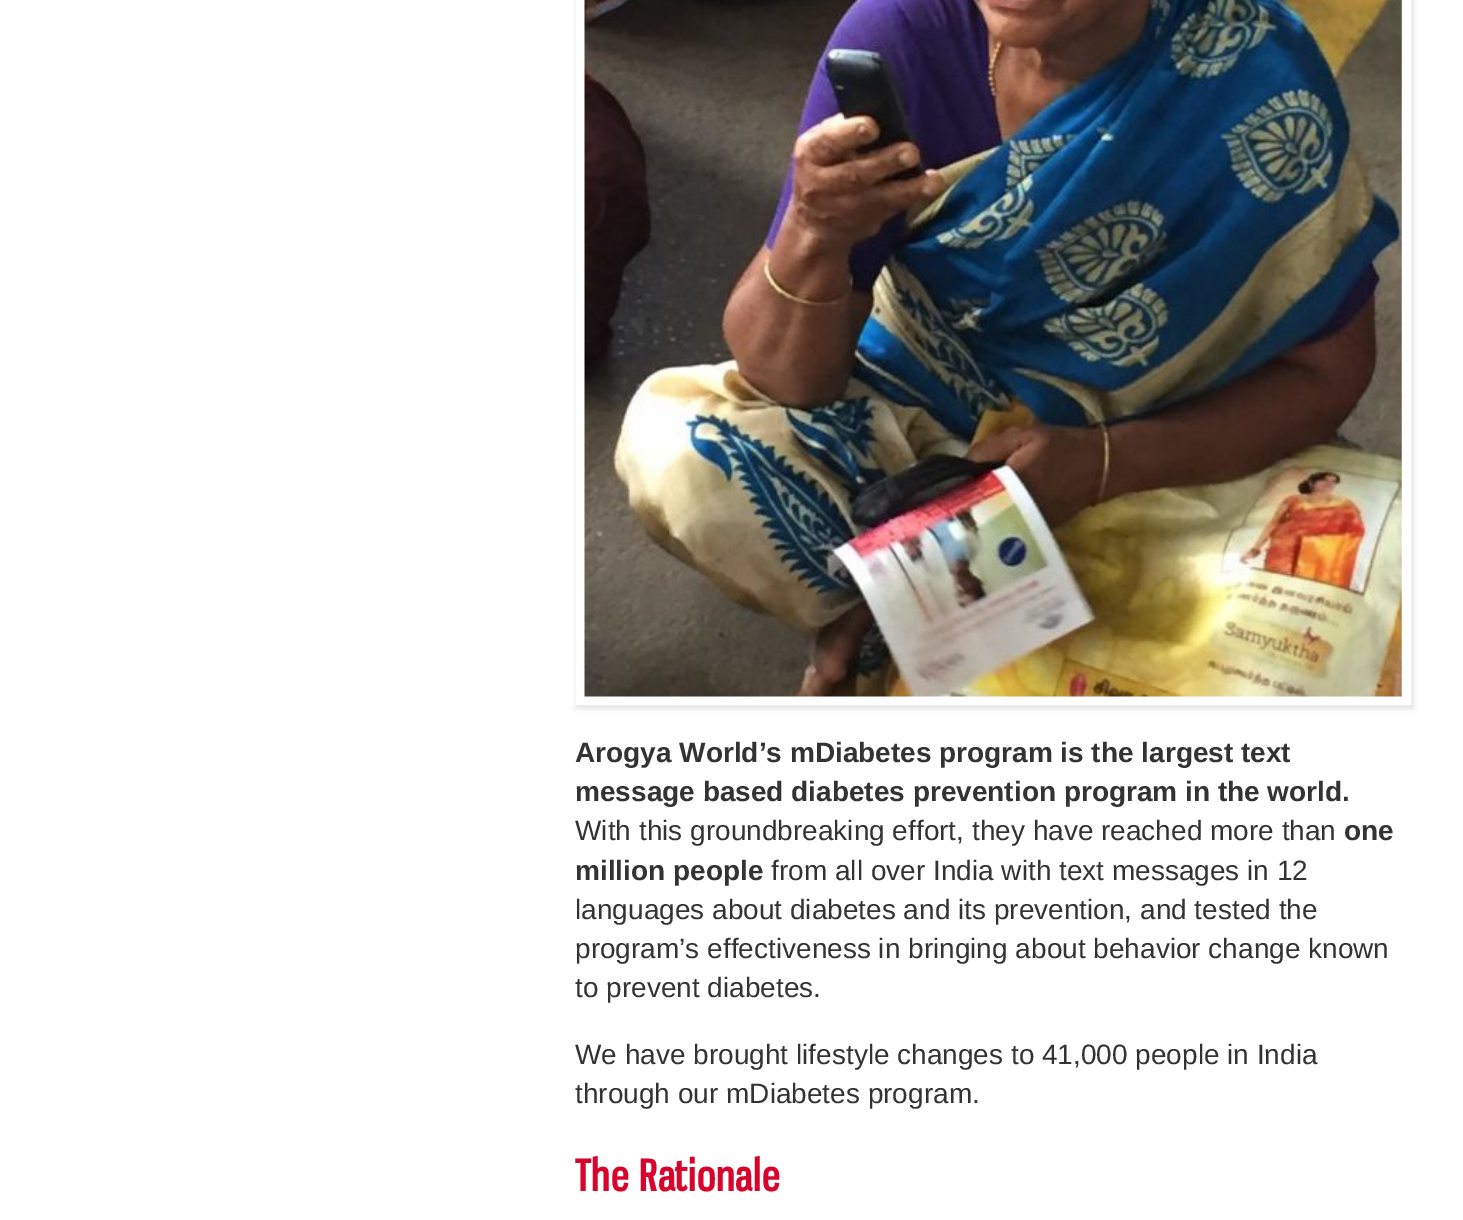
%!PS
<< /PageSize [1463 1220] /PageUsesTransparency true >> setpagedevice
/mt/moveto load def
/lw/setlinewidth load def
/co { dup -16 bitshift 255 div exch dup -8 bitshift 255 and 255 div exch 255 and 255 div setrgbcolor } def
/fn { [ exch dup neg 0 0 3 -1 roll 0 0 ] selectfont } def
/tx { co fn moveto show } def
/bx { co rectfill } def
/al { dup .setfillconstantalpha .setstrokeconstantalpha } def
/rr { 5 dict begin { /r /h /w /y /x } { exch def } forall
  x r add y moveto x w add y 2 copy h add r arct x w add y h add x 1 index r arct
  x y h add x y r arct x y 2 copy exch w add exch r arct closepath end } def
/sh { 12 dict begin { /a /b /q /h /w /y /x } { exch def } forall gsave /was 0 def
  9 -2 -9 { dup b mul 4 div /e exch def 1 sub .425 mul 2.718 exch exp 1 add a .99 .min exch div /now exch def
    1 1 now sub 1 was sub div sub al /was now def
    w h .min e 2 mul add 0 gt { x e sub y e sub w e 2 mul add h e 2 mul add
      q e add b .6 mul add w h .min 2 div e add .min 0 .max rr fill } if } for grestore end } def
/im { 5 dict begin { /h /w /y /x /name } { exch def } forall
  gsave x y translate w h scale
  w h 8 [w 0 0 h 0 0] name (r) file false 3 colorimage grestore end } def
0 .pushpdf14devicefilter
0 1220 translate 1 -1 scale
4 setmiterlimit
0 0 1463 1220 16#FFFFFF bx
16#000000 co
576 -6 838 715 0 2 .1 sh
16#FFFFFF co
9 lw
580.5 -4.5 826 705 rectstroke
(media/1.raw) 584 0 818 697 im
(Arogya World’s mDiabetes program is the largest text) 575 762 /LiberationSans-Bold 28 16#333333 tx
(message based diabetes prevention program in the world.) 575 801 /LiberationSans-Bold 28 16#333333 tx
(With this groundbreaking effort, they have reached more than) 575 840 /LiberationSans-Regular 28 16#333333 tx
(one) 1344 840 /LiberationSans-Bold 28 16#333333 tx
(million people) 575 880 /LiberationSans-Bold 28 16#333333 tx
(from all over India with text messages in 12) 771 880 /LiberationSans-Regular 28 16#333333 tx
(languages about diabetes and its prevention, and tested the) 575 919 /LiberationSans-Regular 28 16#333333 tx
(program’s effectiveness in bringing about behavior change known) 575 958 /LiberationSans-Regular 28 16#333333 tx
(to prevent diabetes.) 575 997 /LiberationSans-Regular 28 16#333333 tx
(We have brought lifestyle changes to 41,000 people in India) 575 1064 /LiberationSans-Regular 28 16#333333 tx
(through our mDiabetes program.) 575 1103 /LiberationSans-Regular 28 16#333333 tx
/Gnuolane-Bold 42 fn
16#D9042B co
575 1191 mt 1.25 0 (The Rationale) ashow
.poppdf14devicefilter showpage
